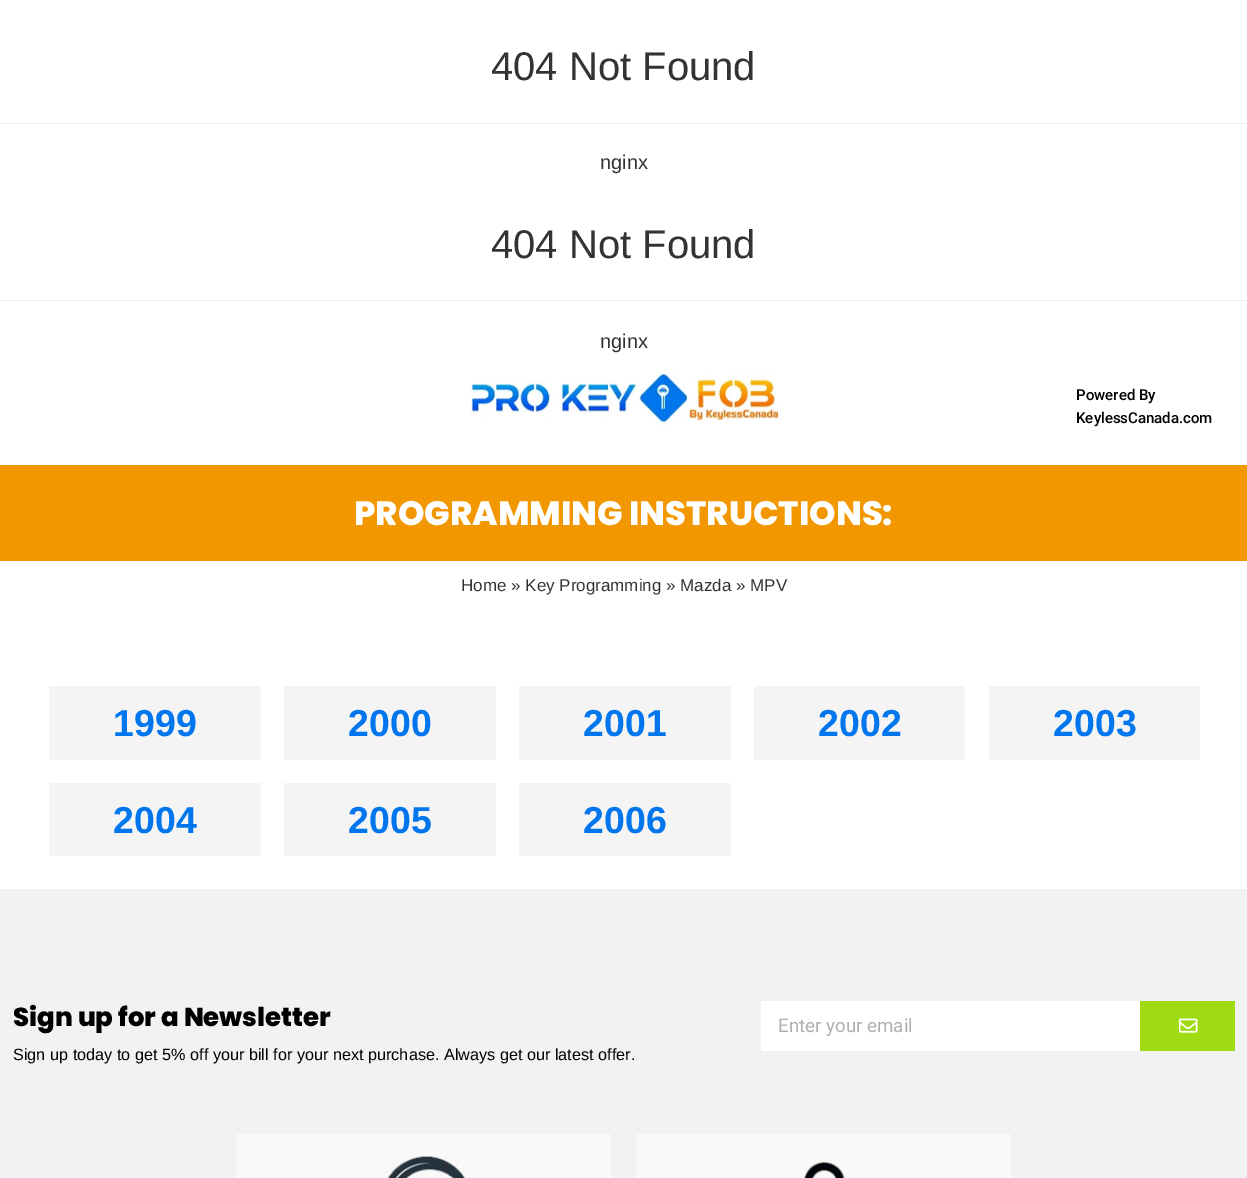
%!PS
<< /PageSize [1247 1178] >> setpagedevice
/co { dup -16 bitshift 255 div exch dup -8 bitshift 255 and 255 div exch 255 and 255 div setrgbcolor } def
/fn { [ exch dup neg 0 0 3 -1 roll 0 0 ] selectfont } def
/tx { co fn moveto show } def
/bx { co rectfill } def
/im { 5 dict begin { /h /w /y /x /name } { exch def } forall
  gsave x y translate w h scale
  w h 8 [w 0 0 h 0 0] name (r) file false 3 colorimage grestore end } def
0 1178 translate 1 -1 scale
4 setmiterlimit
0 0 1247 1178 16#FFFFFF bx
0 123 1247 1 16#EEEEEE bx
0 300 1247 1 16#EEEEEE bx
(media/1.raw) 470 369 311 57 im
0 465 1247 96 16#F39700 bx
49 686 212 74 16#F4F4F4 bx
284 686 212 74 16#F4F4F4 bx
519 686 212 74 16#F4F4F4 bx
754 686 211 74 16#F4F4F4 bx
989 686 211 74 16#F4F4F4 bx
49 783 212 73 16#F4F4F4 bx
284 783 212 73 16#F4F4F4 bx
519 783 212 73 16#F4F4F4 bx
0 889 1247 289 16#F2F2F2 bx
761 1001 379 50 16#FFFFFF bx
1140 1001 95 50 16#9FDA12 bx
(media/2.raw) 1179 1018 19 15 im
(media/3.raw) 236 1134 375 44 im
(media/4.raw) 636 1134 375 44 im
(404 Not Found) 491 80 /LiberationSans-Regular 40 16#333333 tx
(nginx) 600 169 /LiberationSans-Regular 20 16#333333 tx
(404 Not Found) 491 258 /LiberationSans-Regular 40 16#333333 tx
(nginx) 600 348 /LiberationSans-Regular 20 16#333333 tx
(Powered By) 1076 400 /Roboto-Medium 15 16#000000 tx
(KeylessCanada.com) 1076 423 /Roboto-Medium 15 16#000000 tx
(PROGRAMMING INSTRUCTIONS:) 354 525 /Poppins-ExtraBold 33.75 16#FFFFFF tx
(Home » Key Programming » Mazda » MPV) 461 591 /LiberationSans-Regular 17 16#333333 tx
(1999) 113 736 /LiberationSans-Bold 37.5 16#0076EE tx
(2000) 348 736 /LiberationSans-Bold 37.5 16#0076EE tx
(2001) 583 736 /LiberationSans-Bold 37.5 16#0076EE tx
(2002) 818 736 /LiberationSans-Bold 37.5 16#0076EE tx
(2003) 1053 736 /LiberationSans-Bold 37.5 16#0076EE tx
(2004) 113 833 /LiberationSans-Bold 37.5 16#0076EE tx
(2005) 348 833 /LiberationSans-Bold 37.5 16#0076EE tx
(2006) 583 833 /LiberationSans-Bold 37.5 16#0076EE tx
(Sign up for a Newsletter) 13 1026 /Poppins-ExtraBold 26 16#000000 tx
(Sign up today to get 5% off your bill for your next purchase. Always get our latest offer.) 13 1060 /LiberationSans-Regular 16.25 16#000000 tx
(Enter your email) 778 1032 /Roboto-Regular 18.75 16#AFAFAF tx
showpage
